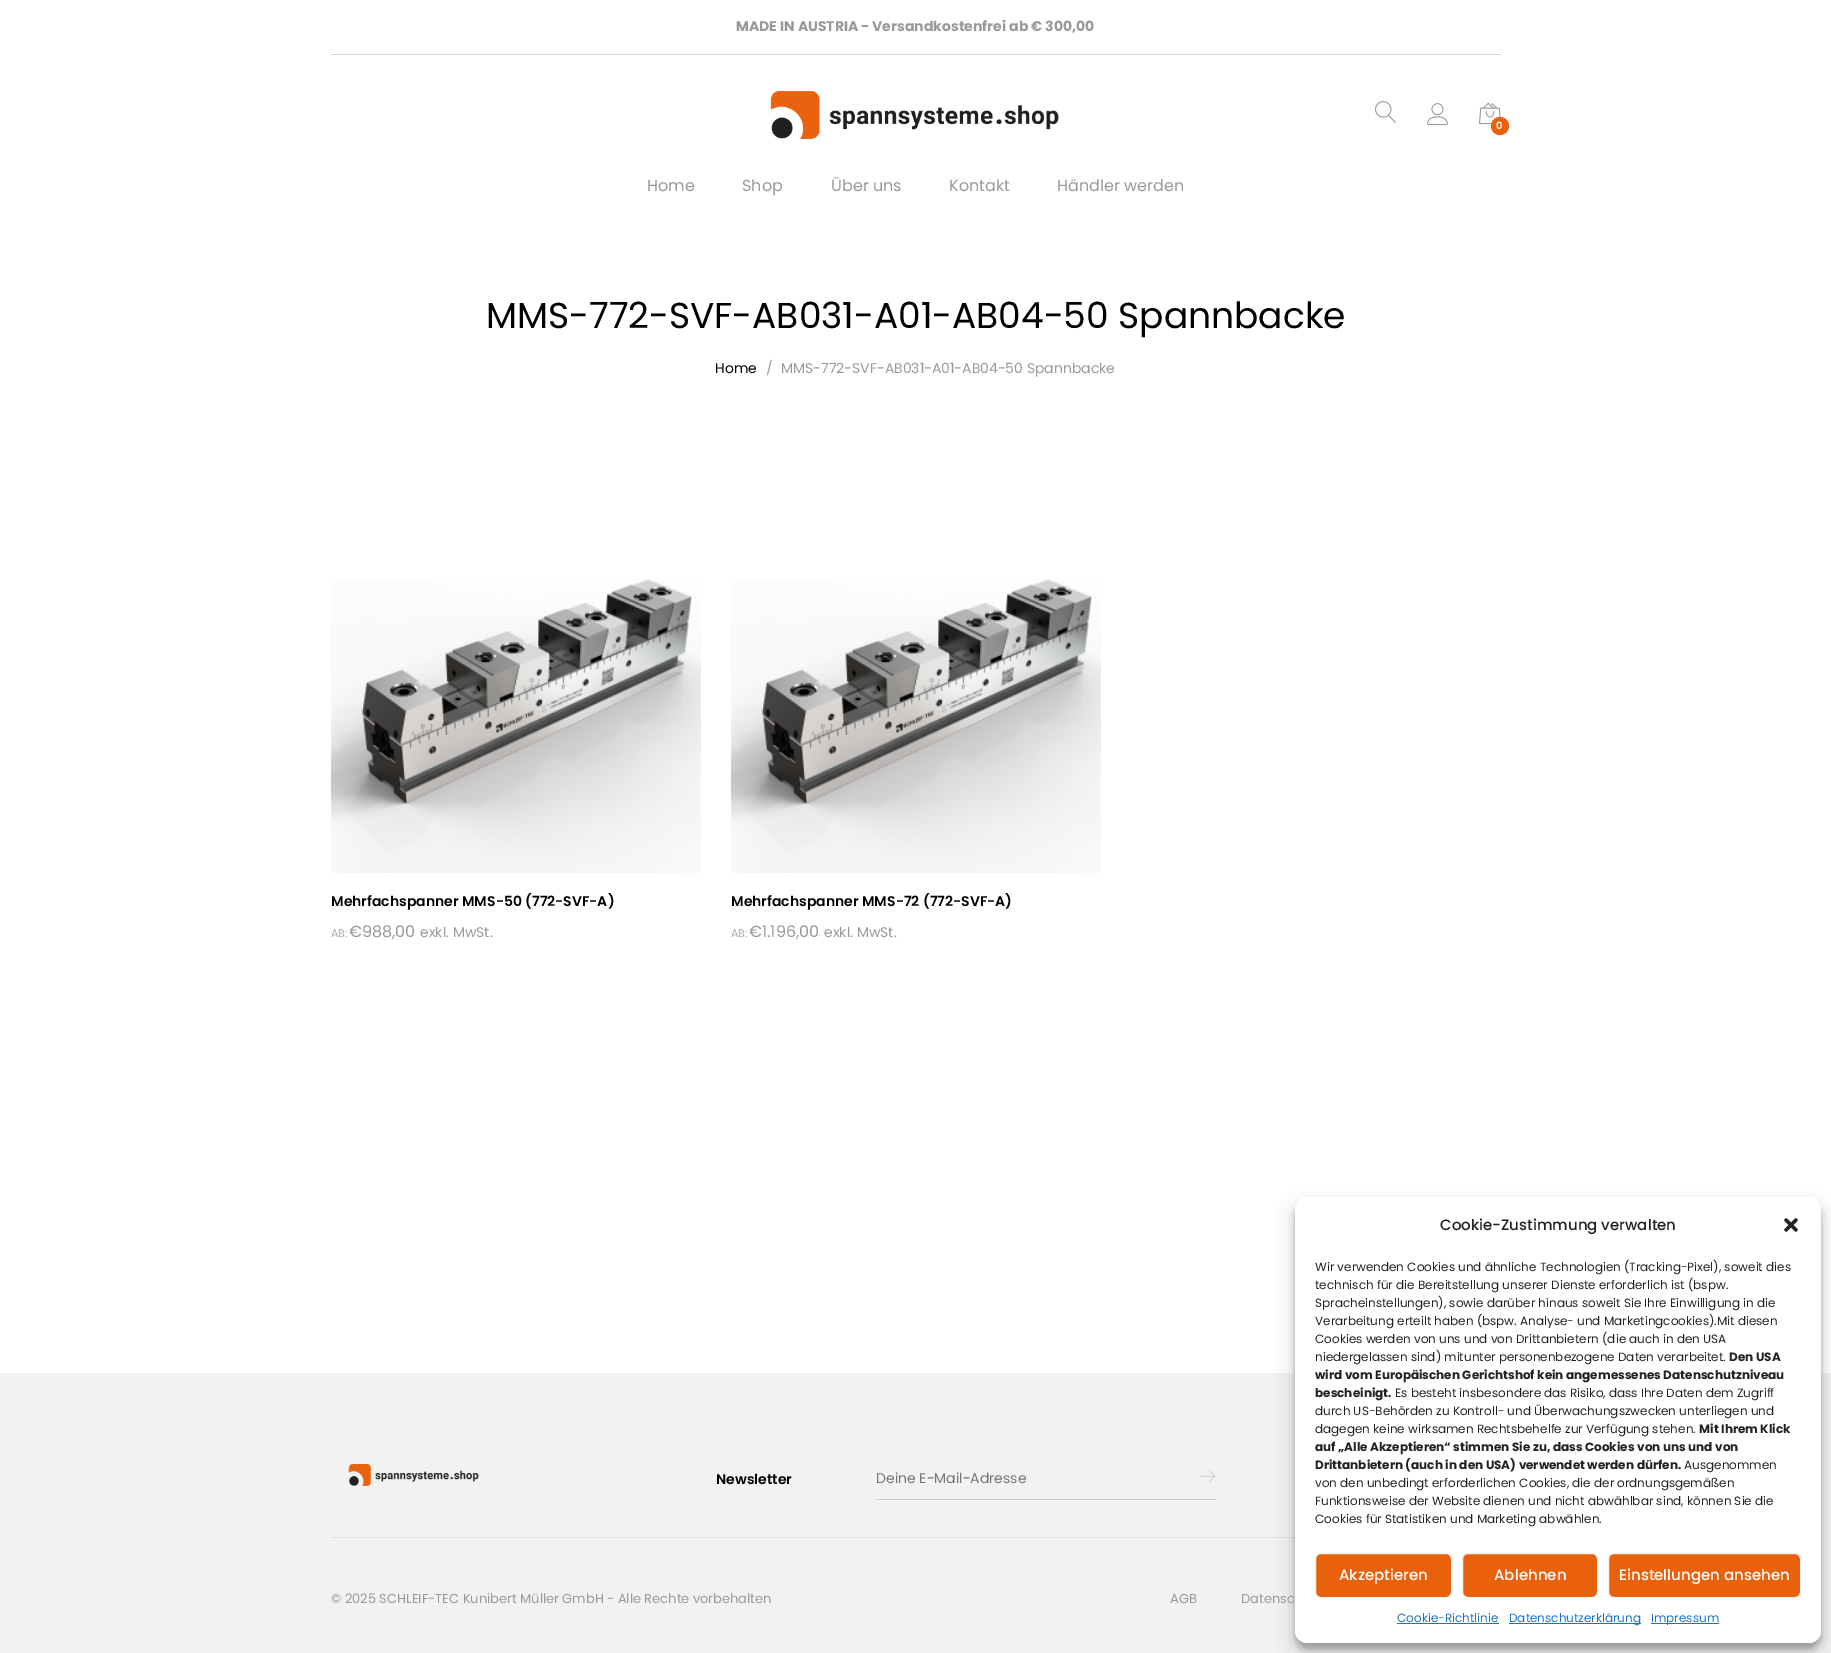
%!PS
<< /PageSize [1831 1653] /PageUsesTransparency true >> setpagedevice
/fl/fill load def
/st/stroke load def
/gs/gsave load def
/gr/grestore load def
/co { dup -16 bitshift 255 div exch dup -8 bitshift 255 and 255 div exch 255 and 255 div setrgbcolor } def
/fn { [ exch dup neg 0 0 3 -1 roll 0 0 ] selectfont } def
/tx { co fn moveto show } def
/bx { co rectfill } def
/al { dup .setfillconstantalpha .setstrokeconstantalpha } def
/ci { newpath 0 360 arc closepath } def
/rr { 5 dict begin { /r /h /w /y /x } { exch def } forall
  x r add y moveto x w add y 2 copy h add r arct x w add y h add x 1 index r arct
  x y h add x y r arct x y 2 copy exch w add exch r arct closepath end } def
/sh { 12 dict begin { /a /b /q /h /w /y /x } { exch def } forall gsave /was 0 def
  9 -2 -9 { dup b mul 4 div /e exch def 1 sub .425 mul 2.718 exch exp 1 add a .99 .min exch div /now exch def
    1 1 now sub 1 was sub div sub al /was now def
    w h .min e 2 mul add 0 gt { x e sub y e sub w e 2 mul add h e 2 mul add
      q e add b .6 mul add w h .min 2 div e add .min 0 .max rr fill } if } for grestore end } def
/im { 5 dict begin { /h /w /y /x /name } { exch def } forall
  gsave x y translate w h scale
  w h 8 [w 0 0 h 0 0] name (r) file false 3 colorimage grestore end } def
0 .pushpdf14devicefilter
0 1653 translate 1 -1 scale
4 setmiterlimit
0 0 1831 1653 16#FFFFFF bx
331 54 1170 1 16#D6D6D6 bx
(media/1.raw) 770 91 289 48 im
(media/2.raw) 1375 101 21 22 im
(media/3.raw) 1427 103 21 23 im
(media/4.raw) 1479 102 22 23 im
16#E9600D co
1500 126 9 ci fl
(media/5.raw) 331 579 370 294 im
(media/6.raw) 731 579 370 294 im
0 1373 1831 280 16#F2F2F2 bx
(media/7.raw) 348 1464 131 22 im
876 1499 340 1 16#CCCCCC bx
(media/8.raw) 1199 1470 17 12 im
331 1537 964 1 16#E1E1E1 bx
16#000000 co
1295 1203 526 446 12 3 .23 sh
1295 1207 526 446 12 10 .19 sh
16#FFFFFF co
1295 1197 526 446 12 rr fl
(media/9.raw) 1784 1218 14 14 im
16#E9600D co
1315.5 1553.5 136 44 5.5 rr gs fl gr
16#F2F2F2 co
st
16#E9600D co
1462.5 1553.5 135 44 5.5 rr gs fl gr
16#F2F2F2 co
st
16#E9600D co
1608.5 1553.5 192 44 5.5 rr gs fl gr
16#F2F2F2 co
st
1397 1623 102 1 16#1E73BE bx
1509 1623 132 1 16#1E73BE bx
1651 1623 68 1 16#1E73BE bx
(MADE IN AUSTRIA - Versandkostenfrei ab € 300,00) 736 31 /Poppins-Bold 14 16#999999 tx
(0) 1496 129 /Poppins-SemiBold 10 16#FFFFFF tx
(Home) 647 191 /Poppins-Regular 16 16#999999 tx
(Shop) 742 191 /Poppins-Regular 16 16#999999 tx
(Über uns) 831 191 /Poppins-Regular 16 16#999999 tx
(Kontakt) 949 191 /Poppins-Regular 16 16#999999 tx
(Händler werden) 1057 191 /Poppins-Regular 16 16#999999 tx
(MMS-772-SVF-AB031-A01-AB04-50 Spannbacke) 486 328 /Poppins-Regular 36 16#000000 tx
(Home) 715 373 /Poppins-Regular 14 16#000000 tx
(/) 766 373 /Poppins-Regular 14 16#999999 tx
(MMS-772-SVF-AB031-A01-AB04-50 Spannbacke) 781 373 /Poppins-Regular 14 16#999999 tx
(Mehrfachspanner MMS-50 \(772-SVF-A\)) 331 906 /Poppins-SemiBold 14 16#000000 tx
(AB:) 331 937 /Poppins-Regular 11 16#ADACA2 tx
(€988,00) 349 937 /Poppins-Regular 16 16#999999 tx
(exkl. MwSt.) 420 937 /Poppins-Regular 14 16#999999 tx
(Mehrfachspanner MMS-72 \(772-SVF-A\)) 731 906 /Poppins-SemiBold 14 16#000000 tx
(AB:) 731 937 /Poppins-Regular 11 16#ADACA2 tx
(€1.196,00) 749 937 /Poppins-Regular 16 16#999999 tx
(exkl. MwSt.) 824 937 /Poppins-Regular 14 16#999999 tx
(Newsletter) 716 1484 /Poppins-SemiBold 14 16#000000 tx
(Deine E-Mail-Adresse) 876 1483 /Poppins-Regular 14 16#757575 tx
(© 2025 SCHLEIF-TEC Kunibert Müller GmbH - Alle Rechte vorbehalten) 331 1603 /Poppins-Regular 13 16#999999 tx
(AGB) 1170 1603 /Poppins-Regular 13 16#999999 tx
(Datensc) 1241 1603 /Poppins-Regular 13 16#999999 tx
(Cookie-Zustimmung verwalten) 1440 1230 /Poppins-Medium 15 16#222222 tx
(Wir verwenden Cookies und ähnliche Technologien \(Tracking-Pixel\), soweit dies) 1315 1271 /Poppins-Regular 12 16#222222 tx
(technisch für die Bereitstellung unserer Dienste erforderlich ist \(bspw.) 1315 1289 /Poppins-Regular 12 16#222222 tx
(Spracheinstellungen\), sowie darüber hinaus soweit Sie Ihre Einwilligung in die) 1315 1307 /Poppins-Regular 12 16#222222 tx
(Verarbeitung erteilt haben \(bspw. Analyse- und Marketingcookies\).Mit diesen) 1315 1325 /Poppins-Regular 12 16#222222 tx
(Cookies werden von uns und von Drittanbietern \(die auch in den USA) 1315 1343 /Poppins-Regular 12 16#222222 tx
(niedergelassen sind\) mitunter personenbezogene Daten verarbeitet.) 1315 1361 /Poppins-Regular 12 16#222222 tx
(Den USA) 1729 1361 /Poppins-Bold 12 16#222222 tx
(wird vom Europäischen Gerichtshof kein angemessenes Datenschutzniveau) 1315 1379 /Poppins-Bold 12 16#222222 tx
(bescheinigt.) 1315 1397 /Poppins-Bold 12 16#222222 tx
(Es besteht insbesondere das Risiko, dass Ihre Daten dem Zugriff) 1395 1397 /Poppins-Regular 12 16#222222 tx
(durch US-Behörden zu Kontroll- und Überwachungszwecken unterliegen und) 1315 1415 /Poppins-Regular 12 16#222222 tx
(dagegen keine wirksamen Rechtsbehelfe zur Verfügung stehen.) 1315 1433 /Poppins-Regular 12 16#222222 tx
(Mit Ihrem Klick) 1699 1433 /Poppins-Bold 12 16#222222 tx
(auf „Alle Akzeptieren“ stimmen Sie zu, dass Cookies von uns und von) 1315 1451 /Poppins-Bold 12 16#222222 tx
(Drittanbietern \(auch in den USA\) verwendet werden dürfen.) 1315 1469 /Poppins-Bold 12 16#222222 tx
(Ausgenommen) 1684 1469 /Poppins-Regular 12 16#222222 tx
(von den unbedingt erforderlichen Cookies, die der ordnungsgemäßen) 1315 1487 /Poppins-Regular 12 16#222222 tx
(Funktionsweise der Website dienen und nicht abwählbar sind, können Sie die) 1315 1505 /Poppins-Regular 12 16#222222 tx
(Cookies für Statistiken und Marketing abwählen.) 1315 1523 /Poppins-Regular 12 16#222222 tx
(Akzeptieren) 1339 1580 /Poppins-Medium 15 16#FFFFFF tx
(Ablehnen) 1494 1580 /Poppins-Medium 15 16#FFFFFF tx
(Einstellungen ansehen) 1619 1580 /Poppins-Medium 15 16#FFFFFF tx
(Cookie-Richtlinie) 1397 1622 /Poppins-Regular 12 16#1E73BE tx
(Datenschutzerklärung) 1509 1622 /Poppins-Regular 12 16#1E73BE tx
(Impressum) 1651 1622 /Poppins-Regular 12 16#1E73BE tx
.poppdf14devicefilter showpage
